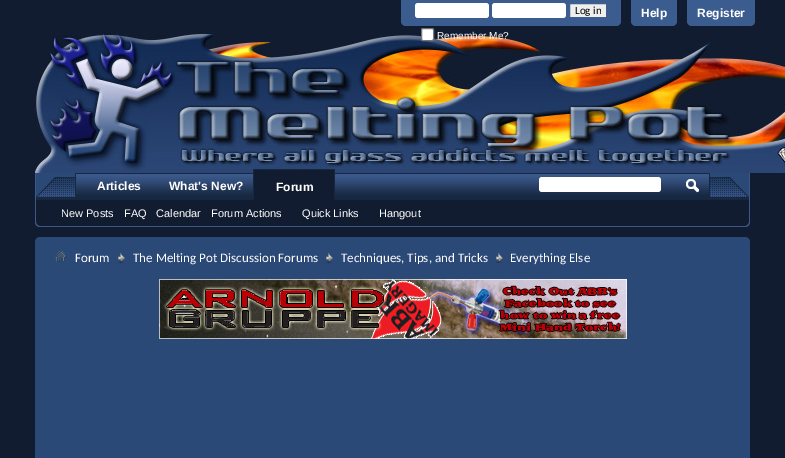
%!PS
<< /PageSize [785 458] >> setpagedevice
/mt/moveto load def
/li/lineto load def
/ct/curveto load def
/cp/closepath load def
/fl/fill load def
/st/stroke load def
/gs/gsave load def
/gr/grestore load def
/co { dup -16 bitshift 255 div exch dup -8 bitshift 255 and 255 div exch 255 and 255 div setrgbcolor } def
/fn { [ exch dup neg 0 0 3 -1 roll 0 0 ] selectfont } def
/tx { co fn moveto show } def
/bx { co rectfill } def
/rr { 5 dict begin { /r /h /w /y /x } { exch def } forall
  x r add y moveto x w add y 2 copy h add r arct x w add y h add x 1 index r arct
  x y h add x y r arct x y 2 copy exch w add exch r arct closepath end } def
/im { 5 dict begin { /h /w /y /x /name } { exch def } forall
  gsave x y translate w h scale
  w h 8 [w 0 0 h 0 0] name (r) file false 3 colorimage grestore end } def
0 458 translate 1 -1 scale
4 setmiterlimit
0 0 785 458 16#111C30 bx
16#3B5C8F co
401 0 mt 621 0 li 621 21 li 621 24 619 26 616 26 ct 406 26 li 403 26 401 24 401 21 ct cp fl
16#FFFFFF co
415 3 74 15 3 rr fl
492 3 74 15 3 rr fl
16#EFEFEF co
569.5 3.5 mt 606.5 3.5 li 606.5 17.5 li 569.5 17.5 li cp gs fl gr
16#415D8D co
st
(media/1.raw) 35 33 750 140 im
16#FFFFFF co
421.5 28.5 12 12 1.5 rr gs fl gr
16#767676 co
st
16#3B5C8F co
631 0 mt 677 0 li 677 21 li 677 24 675 26 672 26 ct 636 26 li 633 26 631 24 631 21 ct cp fl
687 0 mt 755 0 li 755 21 li 755 24 753 26 750 26 ct 692 26 li 689 26 687 24 687 21 ct cp fl
16#3A5889 co
35 173 mt 750 173 li 750 222 li 750 225 748 227 745 227 ct 40 227 li 37 227 35 225 35 222 ct cp 36 173 mt 749 173 li 749 222 li 749 224 747 226 745 226 ct 40 226 li 38 226 36 224 36 222 ct cp eofill
36 173 713 26 16#172942 bx
(media/2.raw) 36 173 40 24 im
(media/3.raw) 76 174 633 21 im
36 199 713 1 16#162740 bx
254 170 80 30 16#111C30 bx
253 169 82 1 16#162740 bx
334 169 1 31 16#162740 bx
253 169 1 31 16#162740 bx
16#FFFFFF co
539 177 122 15 3 rr fl
(media/4.raw) 686 179 13 14 im
(media/5.raw) 709 173 40 24 im
16#2B4976 co
35 237 715 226 5 rr fl
(media/6.raw) 55 250 12 12 im
(media/7.raw) 118 253 7 10 im
(media/7.raw) 326 253 7 10 im
(media/7.raw) 496 253 7 10 im
(media/8.raw) 159 279 468 60 im
(Log in) 575 14 /Carlito-Regular 11 16#000000 tx
(Remember Me?) 437 39 /LiberationSans-Regular 10 16#FFFFFF tx
(Help) 641 17 /LiberationSans-Bold 12 16#FFFFFF tx
(Register) 697 17 /LiberationSans-Bold 12 16#FFFFFF tx
(Articles) 97 190 /LiberationSans-Bold 12 16#FFFFFF tx
(What's New?) 169 190 /LiberationSans-Bold 12 16#FFFFFF tx
(Forum) 276 191 /LiberationSans-Bold 12 16#FFFFFF tx
(New Posts) 61 217 /LiberationSans-Regular 11 16#FFFFFF tx
(FAQ) 124 217 /LiberationSans-Regular 11 16#FFFFFF tx
(Calendar) 156 217 /LiberationSans-Regular 11 16#FFFFFF tx
(Forum Actions) 211 217 /LiberationSans-Regular 11 16#FFFFFF tx
(Quick Links) 302 217 /LiberationSans-Regular 11 16#FFFFFF tx
(Hangout) 379 217 /LiberationSans-Regular 11 16#FFFFFF tx
(Forum) 75 262 /Carlito-Regular 13 16#FFFFFF tx
(The Melting Pot Discussion Forums) 133 262 /Carlito-Regular 13 16#FFFFFF tx
(Techniques, Tips, and Tricks) 341 262 /Carlito-Regular 13 16#FFFFFF tx
(Everything Else) 510 262 /Carlito-Regular 13 16#FFFFFF tx
showpage
